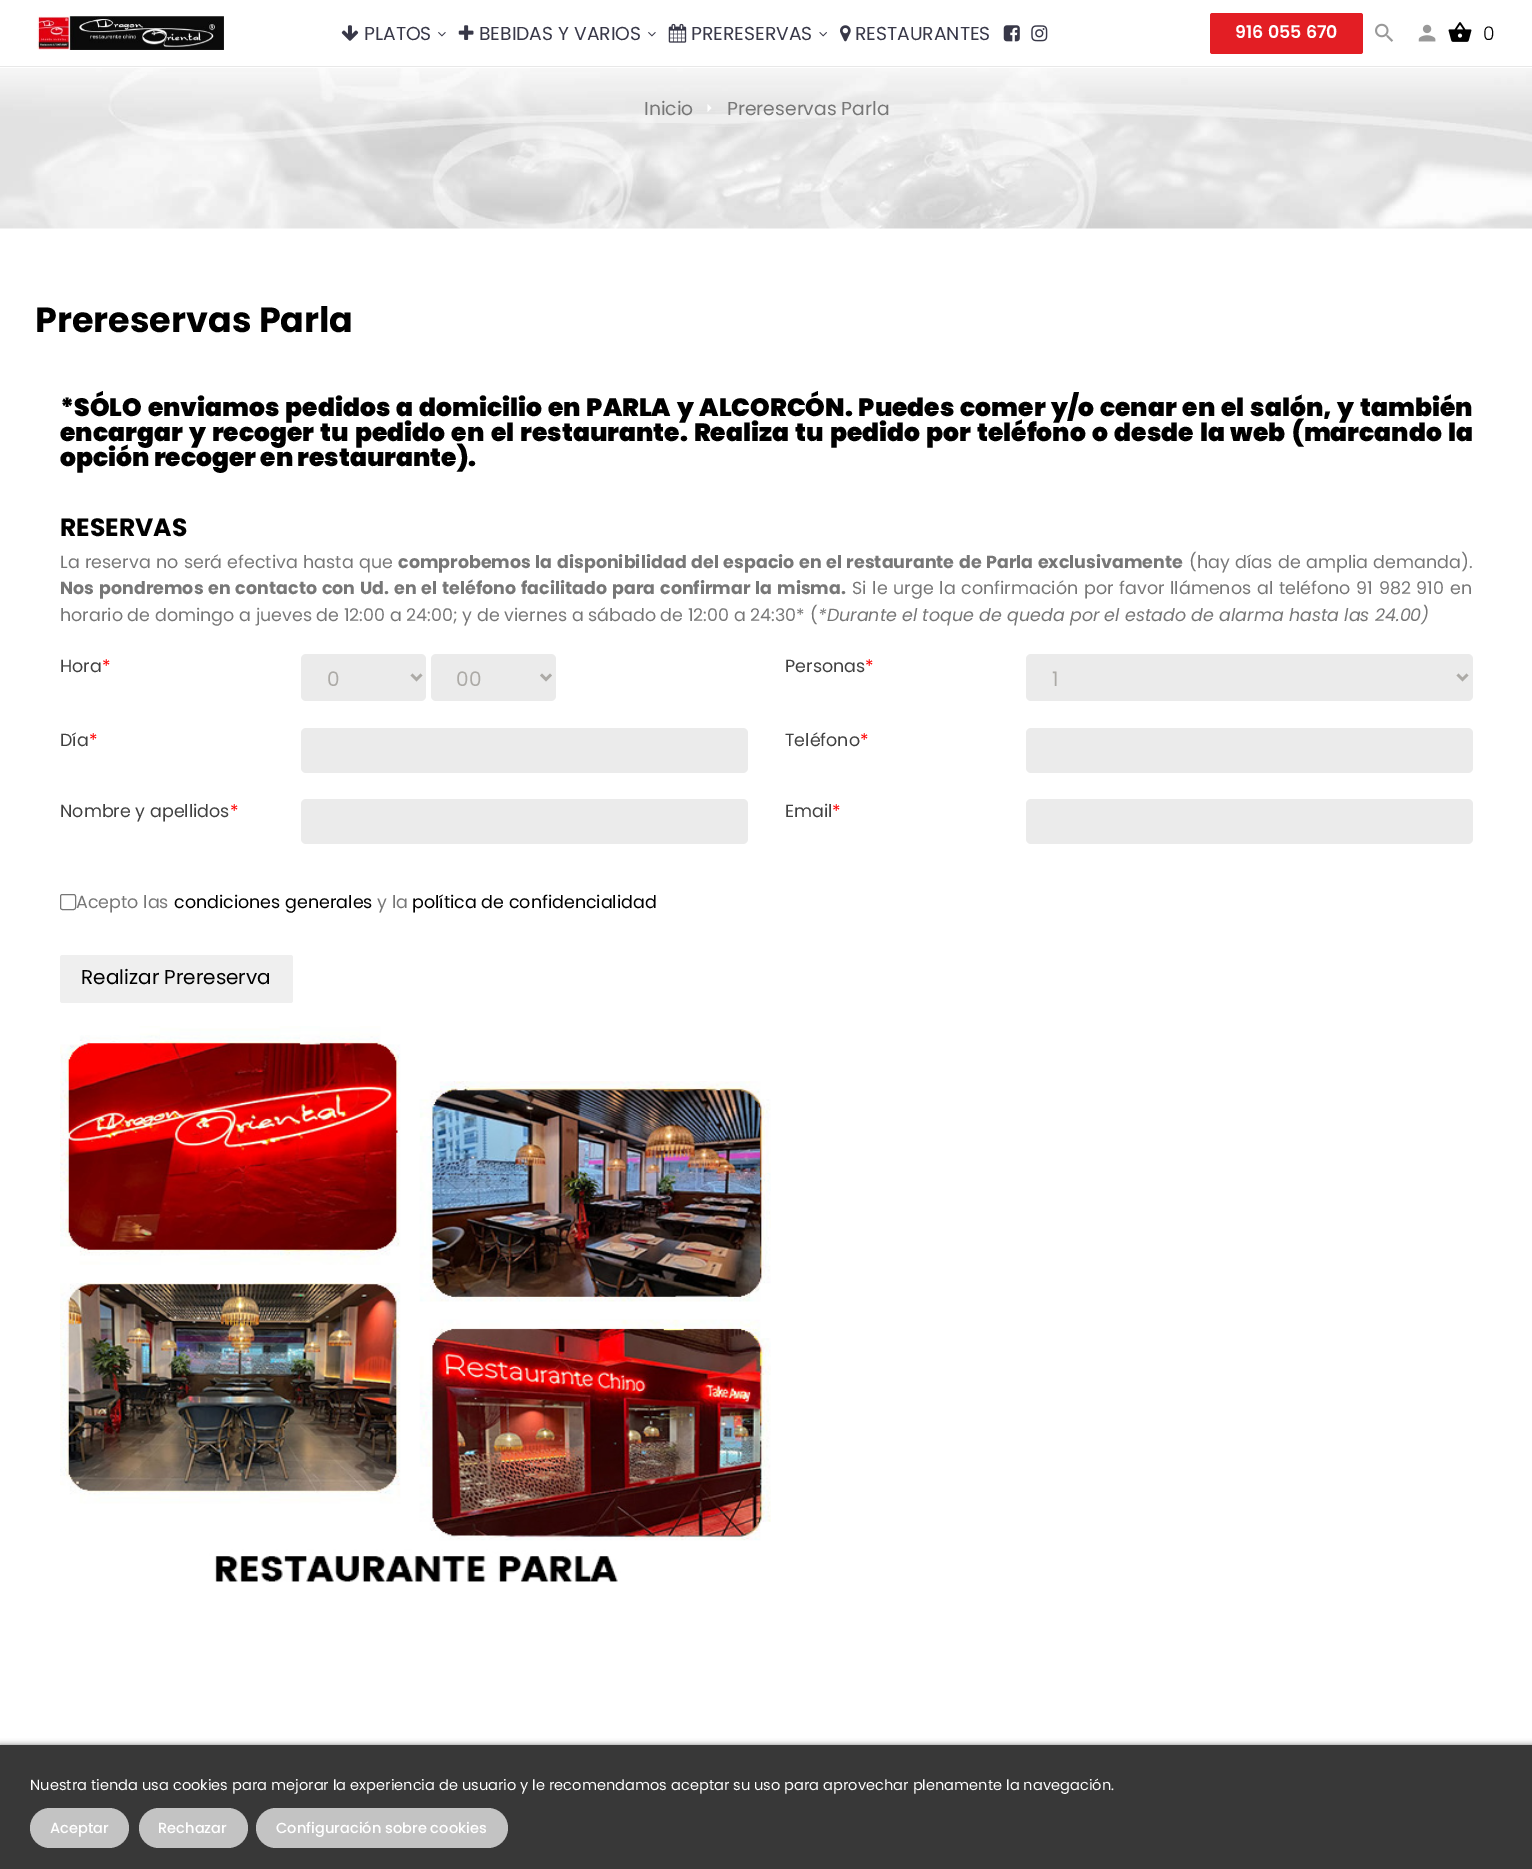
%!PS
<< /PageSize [1532 1869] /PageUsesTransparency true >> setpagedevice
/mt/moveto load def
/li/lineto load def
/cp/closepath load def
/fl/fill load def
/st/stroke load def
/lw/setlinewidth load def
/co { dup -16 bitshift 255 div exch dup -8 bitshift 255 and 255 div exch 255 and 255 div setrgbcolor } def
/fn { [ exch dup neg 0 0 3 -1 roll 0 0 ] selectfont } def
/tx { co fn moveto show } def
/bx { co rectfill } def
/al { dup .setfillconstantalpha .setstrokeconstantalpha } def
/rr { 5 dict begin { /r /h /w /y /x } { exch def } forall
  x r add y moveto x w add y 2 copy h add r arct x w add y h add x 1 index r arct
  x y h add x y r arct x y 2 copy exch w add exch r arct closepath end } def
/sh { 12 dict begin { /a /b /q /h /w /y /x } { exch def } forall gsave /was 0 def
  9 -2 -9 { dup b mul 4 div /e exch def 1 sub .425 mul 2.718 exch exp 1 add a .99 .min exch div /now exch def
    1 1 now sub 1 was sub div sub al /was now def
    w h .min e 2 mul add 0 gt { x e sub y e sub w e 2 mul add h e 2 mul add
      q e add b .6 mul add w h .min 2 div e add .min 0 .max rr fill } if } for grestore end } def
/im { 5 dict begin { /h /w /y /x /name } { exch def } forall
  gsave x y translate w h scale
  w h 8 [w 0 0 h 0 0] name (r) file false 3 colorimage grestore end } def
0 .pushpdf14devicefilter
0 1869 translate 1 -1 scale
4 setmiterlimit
0 0 1532 1869 16#FFFFFF bx
0 66 1532 1 16#E8E8E8 bx
(media/1.raw) 37 16 187 34 im
(media/2.raw) 341 25 18 16 im
(media/3.raw) 438 32 8 5 im
(media/4.raw) 458 25 16 15 im
(media/3.raw) 648 32 8 5 im
(media/5.raw) 668 23 19 20 im
(media/6.raw) 819 32 8 5 im
(media/7.raw) 840 25 11 17 im
(media/8.raw) 1003 25 17 17 im
(media/9.raw) 1031 25 17 17 im
16#E31E24 co
1210 13 153 41 2.5 rr fl
(media/10.raw) 1375 23 19 19 im
(media/11.raw) 1418 24 18 18 im
(media/12.raw) 1448 22 24 20 im
(media/13.raw) 0 68 1532 161 im
16#FFFFFF co
707.5 112 mt 707.5 104 li 711.5 108 li cp fl
16#EBEBEB co
301 654 125 47 5 rr fl
16#ACAAA6 co
2.5 lw
411.5 674.5 mt 416.5 679.5 li 421.5 674.5 li st
16#EBEBEB co
431 654 125 47 5 rr fl
16#ACAAA6 co
541 674.5 mt 546 679.5 li 551 674.5 li st
16#EBEBEB co
301 728 447 45 5 rr fl
301 799 447 45 5 rr fl
1026 654 447 47 5 rr fl
16#ACAAA6 co
1457.5 674.5 mt 1462.5 679.5 li 1467.5 674.5 li st
16#EBEBEB co
1026 728 447 45 5 rr fl
1026 799 447 45 5 rr fl
16#767676 co
1 lw
60.5 894.5 15 15 2 rr st
16#EFEFEF co
60 955 233 48 2.5 rr fl
(media/14.raw) 60 1026 711 556 im
16#000000 co
0 1745 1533 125 0 3 .5 sh
0 1745 1532 124 16#383838 bx
16#C3C3C3 co
30 1808 99 40 20 rr fl
139 1808 109 40 20 rr fl
256 1808 252 40 20 rr fl
(PLATOS) 364 40 /Poppins-Regular 18.75 16#383848 tx
(BEBIDAS Y VARIOS) 479 40 /Poppins-Regular 18.75 16#383848 tx
(PRERESERVAS) 691 40 /Poppins-Regular 18.75 16#383848 tx
(RESTAURANTES) 855 40 /Poppins-Regular 18.75 16#383848 tx
(916 055 670) 1235 38 /Poppins-SemiBold 17.5 16#FFFFFF tx
(0) 1483 40 /Poppins-Light 18.75 16#000000 tx
(Inicio) 644 115 /Poppins-Regular 18.75 16#777777 tx
(Prereservas Parla) 727 115 /Poppins-Regular 18.75 16#777777 tx
(Prereservas Parla) 35 332 /Poppins-Bold 35 16#000000 tx
/Poppins-Black 25 fn
60 416 mt 1.6 0 32 (*SÓLO enviamos pedidos a domicilio en PARLA y ALCORCÓN. Puedes comer y/o cenar en el salón, y también) widthshow
60 441 mt 2 0 32 (encargar y recoger tu pedido en el restaurante. Realiza tu pedido por) widthshow
(teléfono) 977 441 /Poppins-Black 25 16#000000 tx
1092 441 mt 2 0 32 (o desde la) widthshow
(web) 1230 441 /Poppins-Black 25 16#000000 tx
1292 441 mt 2 0 32 (\(marcando la) widthshow
(opción recoger en restaurante\).) 60 466 /Poppins-Black 25 16#000000 tx
(RESERVAS) 60 536 /Poppins-Bold 25 16#000000 tx
/Poppins-Regular 17.5 fn
16#777777 co
60 568 mt .75 0 32 (La reserva no será efectiva hasta que) widthshow
/Poppins-Bold 17.5 fn
398 568 mt .75 0 32 (comprobemos la disponibilidad del espacio en el restaurante de Parla exclusivamente) widthshow
/Poppins-Regular 17.5 fn
1189 568 mt .75 0 32 (\(hay días de amplia demanda\).) widthshow
/Poppins-Bold 17.5 fn
60 594 mt 1.1 0 32 (Nos pondremos en contacto con Ud. en el teléfono facilitado para confirmar la misma.) widthshow
/Poppins-Regular 17.5 fn
852 594 mt 1.1 0 32 (Si le urge la confirmación por favor llámenos al teléfono 91 982 910 en) widthshow
(horario de domingo a jueves de 12:00 a 24:00; y de viernes a sábado de 12:00 a 24:30* \() 60 621 /Poppins-Regular 17.5 16#777777 tx
(*Durante el toque de queda por el estado de alarma hasta las 24.00\)) 818 621 /Poppins-Italic 17.5 16#777777 tx
(Hora) 60 672 /Poppins-Regular 17.5 16#414141 tx
(*) 102 672 /Poppins-Regular 17.5 16#FF0000 tx
(0) 327 686 /Poppins-Regular 20 16#ACAAA6 tx
(00) 456 686 /Poppins-Regular 20 16#ACAAA6 tx
(Día) 60 746 /Poppins-Regular 17.5 16#414141 tx
(*) 89 746 /Poppins-Regular 17.5 16#FF0000 tx
(Nombre y apellidos) 60 817 /Poppins-Regular 17.5 16#414141 tx
(*) 230 817 /Poppins-Regular 17.5 16#FF0000 tx
(Personas) 785 672 /Poppins-Regular 17.5 16#414141 tx
(*) 865 672 /Poppins-Regular 17.5 16#FF0000 tx
(1) 1052 686 /Poppins-Regular 20 16#ACAAA6 tx
(Teléfono) 785 746 /Poppins-Regular 17.5 16#414141 tx
(*) 860 746 /Poppins-Regular 17.5 16#FF0000 tx
(Email) 785 817 /Poppins-Regular 17.5 16#414141 tx
(*) 832 817 /Poppins-Regular 17.5 16#FF0000 tx
(Acepto las) 76 908 /Poppins-Regular 17.5 16#777777 tx
(condiciones generales) 174 908 /Poppins-Regular 17.5 16#000000 tx
(y la) 377 908 /Poppins-Regular 17.5 16#777777 tx
(política de confidencialidad) 412 908 /Poppins-Regular 17.5 16#000000 tx
(Realizar Prereserva) 81 984 /Poppins-Regular 20 16#000000 tx
(Nuestra tienda usa cookies para mejorar la experiencia de usuario y le recomendamos aceptar su uso para aprovechar plenamente la navegación.) 30 1790 /Poppins-Regular 14.62 16#FFFFFF tx
(Aceptar) 50 1833 /Poppins-Medium 14.62 16#FFFFFF tx
(Rechazar) 158 1833 /Poppins-Medium 14.62 16#FFFFFF tx
(Configuración sobre cookies) 276 1833 /Poppins-Medium 14.62 16#FFFFFF tx
.poppdf14devicefilter showpage
